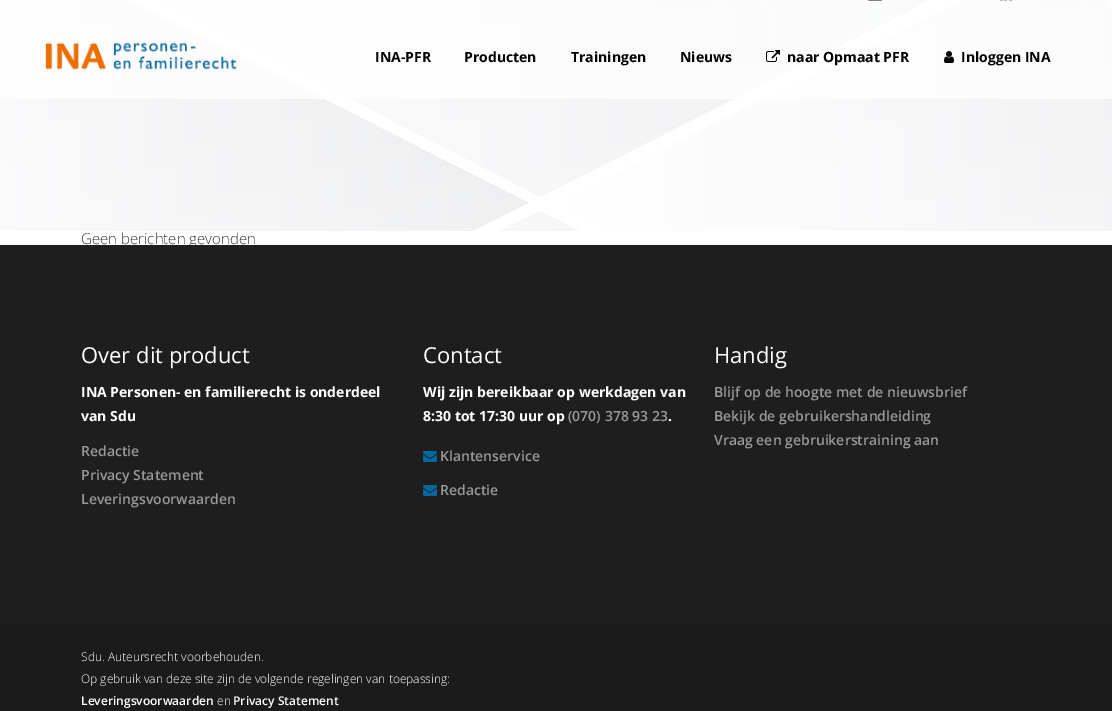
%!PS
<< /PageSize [1112 711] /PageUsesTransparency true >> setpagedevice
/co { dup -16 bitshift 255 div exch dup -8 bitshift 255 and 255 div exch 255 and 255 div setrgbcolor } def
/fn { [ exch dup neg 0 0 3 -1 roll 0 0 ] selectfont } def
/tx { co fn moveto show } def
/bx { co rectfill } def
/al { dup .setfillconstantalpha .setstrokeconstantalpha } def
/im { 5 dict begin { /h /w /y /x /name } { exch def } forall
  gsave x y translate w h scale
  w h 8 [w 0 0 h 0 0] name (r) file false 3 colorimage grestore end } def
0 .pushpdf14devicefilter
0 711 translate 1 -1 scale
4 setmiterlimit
0 0 1112 711 16#FFFFFF bx
(media/6.raw) 0 0 1112 231 im
0.75 al
0 0 1112 14 16#FFFFFF bx
1 al
(media/1.raw) 868 0 14 1 im
(media/2.raw) 1000 0 12 1 im
0.75 al
0 14 1112 85 16#FFFFFF bx
1 al
(media/3.raw) 45 42 192 28 im
(media/4.raw) 766 50 14 12 im
(media/5.raw) 944 51 10 12 im
0 625 1112 86 16#1B1B1B bx
(INA-PFR) 375 62 /OpenSans-Bold 14 16#000000 tx
(Producten) 464 62 /OpenSans-Bold 14 16#000000 tx
(Trainingen) 571 62 /OpenSans-Bold 14 16#000000 tx
(Nieuws) 680 62 /OpenSans-Bold 14 16#000000 tx
(naar Opmaat PFR) 787 62 /OpenSans-Bold 14 16#000000 tx
(Inloggen INA) 961 62 /OpenSans-Bold 14 16#000000 tx
(Geen berichten gevonden) 81 244 /OpenSans-Light 15 16#383838 tx
0 245 1112 380 16#1E1E1E bx
(Over dit product) 81 363 /OpenSans-Regular 22 16#FFFFFF tx
(INA Personen- en familierecht is onderdeel) 81 397 /OpenSans-Bold 14 16#FFFFFF tx
(van Sdu) 81 421 /OpenSans-Bold 14 16#FFFFFF tx
(Redactie) 81 456 /OpenSans-SemiBold 14 16#999999 tx
(Privacy Statement) 81 480 /OpenSans-SemiBold 14 16#999999 tx
(Leveringsvoorwaarden) 81 504 /OpenSans-SemiBold 14 16#999999 tx
(Contact) 423 363 /OpenSans-Regular 22 16#FFFFFF tx
(Wij zijn bereikbaar op werkdagen van) 423 397 /OpenSans-Bold 14 16#FFFFFF tx
(8:30 tot 17:30 uur op) 423 421 /OpenSans-Bold 14 16#FFFFFF tx
(\(070\) 378 93 23) 568 421 /OpenSans-SemiBold 14 16#999999 tx
(.) 668 421 /OpenSans-Bold 14 16#FFFFFF tx
(media/7.raw) 423 451 14 11 im
(Klantenservice) 440 461 /OpenSans-SemiBold 14 16#999999 tx
(media/7.raw) 423 485 14 11 im
(Redactie) 440 495 /OpenSans-SemiBold 14 16#999999 tx
(Handig) 714 363 /OpenSans-Regular 22 16#FFFFFF tx
(Blijf op de hoogte met de nieuwsbrief) 714 397 /OpenSans-SemiBold 14 16#999999 tx
(Bekijk de gebruikershandleiding) 714 421 /OpenSans-SemiBold 14 16#999999 tx
(Vraag een gebruikerstraining aan) 714 445 /OpenSans-SemiBold 14 16#999999 tx
(Sdu. Auteursrecht voorbehouden.) 81 661 /OpenSans-Light 12 16#FFFFFF tx
(Op gebruik van deze site zijn de volgende regelingen van toepassing:) 81 683 /OpenSans-Light 12 16#FFFFFF tx
(Leveringsvoorwaarden) 81 705 /OpenSans-SemiBold 12 16#FFFFFF tx
(en) 217 705 /OpenSans-Light 12 16#FFFFFF tx
(Privacy Statement) 233 705 /OpenSans-SemiBold 12 16#FFFFFF tx
.poppdf14devicefilter showpage
